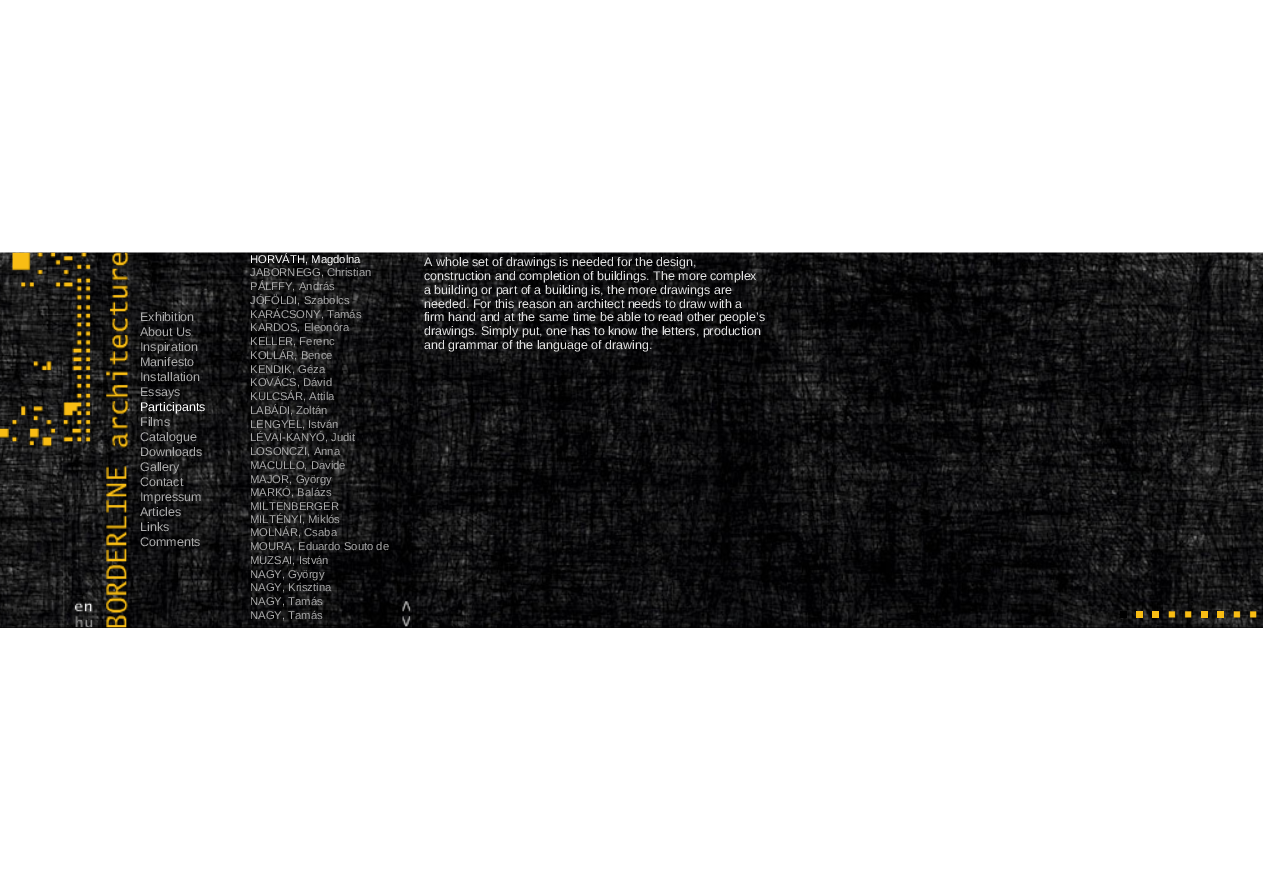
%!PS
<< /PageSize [1263 879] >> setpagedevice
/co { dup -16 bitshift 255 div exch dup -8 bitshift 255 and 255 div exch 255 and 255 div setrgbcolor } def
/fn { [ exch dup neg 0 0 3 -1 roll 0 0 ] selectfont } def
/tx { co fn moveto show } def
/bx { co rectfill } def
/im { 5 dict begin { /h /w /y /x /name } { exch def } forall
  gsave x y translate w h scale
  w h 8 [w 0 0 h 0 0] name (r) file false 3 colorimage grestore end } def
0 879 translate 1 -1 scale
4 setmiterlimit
0 0 1263 879 16#FFFFFF bx
0 627 1263 1 16#000000 bx
(media/1.raw) 0 252 1263 376 im
(media/2.raw) 0 252 129 376 im
(media/3.raw) 74 595 19 17 im
(media/4.raw) 75 615 19 13 im
(media/5.raw) 402 601 9 11 im
(media/6.raw) 402 616 9 11 im
1120 611 7 7 16#000000 bx
1136 611 7 7 16#F9BD14 bx
1152 611 7 7 16#F9BD14 bx
(media/7.raw) 1168 611 8 7 im
(media/8.raw) 1184 611 8 7 im
1201 611 7 7 16#F9BD14 bx
1217 611 7 7 16#F9BD14 bx
(media/9.raw) 1233 611 8 7 im
(media/10.raw) 1249 611 8 7 im
(Exhibition) 140 321 /LiberationSans-Regular 12.5 16#AAAAAA tx
(About Us) 140 336 /LiberationSans-Regular 12.5 16#AAAAAA tx
(Inspiration) 140 351 /LiberationSans-Regular 12.5 16#AAAAAA tx
(Manifesto) 140 366 /LiberationSans-Regular 12.5 16#AAAAAA tx
(Installation) 140 381 /LiberationSans-Regular 12.5 16#AAAAAA tx
(Essays) 140 396 /LiberationSans-Regular 12.5 16#AAAAAA tx
(Participants) 140 411 /LiberationSans-Regular 12.5 16#FFFFFF tx
(Films) 140 426 /LiberationSans-Regular 12.5 16#AAAAAA tx
(Catalogue) 140 441 /LiberationSans-Regular 12.5 16#AAAAAA tx
(Downloads) 140 456 /LiberationSans-Regular 12.5 16#AAAAAA tx
(Gallery) 140 471 /LiberationSans-Regular 12.5 16#AAAAAA tx
(Contact) 140 486 /LiberationSans-Regular 12.5 16#AAAAAA tx
(Impressum) 140 501 /LiberationSans-Regular 12.5 16#AAAAAA tx
(Articles) 140 516 /LiberationSans-Regular 12.5 16#AAAAAA tx
(Links) 140 531 /LiberationSans-Regular 12.5 16#AAAAAA tx
(Comments) 140 546 /LiberationSans-Regular 12.5 16#AAAAAA tx
(HORVÁTH, Magdolna) 250 263 /LiberationSans-Regular 11.25 16#FFFFFF tx
(JABORNEGG, Christian) 250 276 /LiberationSans-Regular 11.25 16#AAAAAA tx
(PÁLFFY, András) 250 290 /LiberationSans-Regular 11.25 16#AAAAAA tx
(JÓFÖLDI, Szabolcs) 250 304 /LiberationSans-Regular 11.25 16#AAAAAA tx
(KARÁCSONY, Tamás) 250 318 /LiberationSans-Regular 11.25 16#AAAAAA tx
(KARDOS, Eleonóra) 250 331 /LiberationSans-Regular 11.25 16#AAAAAA tx
(KELLER, Ferenc) 250 345 /LiberationSans-Regular 11.25 16#AAAAAA tx
(KOLLÁR, Bence) 250 359 /LiberationSans-Regular 11.25 16#AAAAAA tx
(KENDIK, Géza) 250 373 /LiberationSans-Regular 11.25 16#AAAAAA tx
(KOVÁCS, Dávid) 250 386 /LiberationSans-Regular 11.25 16#AAAAAA tx
(KULCSÁR, Attila) 250 400 /LiberationSans-Regular 11.25 16#AAAAAA tx
(LABÁDI, Zoltán) 250 414 /LiberationSans-Regular 11.25 16#AAAAAA tx
(LENGYEL, István) 250 428 /LiberationSans-Regular 11.25 16#AAAAAA tx
(LÉVAI-KANYÓ, Judit) 250 441 /LiberationSans-Regular 11.25 16#AAAAAA tx
(LOSONCZI, Anna) 250 455 /LiberationSans-Regular 11.25 16#AAAAAA tx
(MACULLO, Davide) 250 469 /LiberationSans-Regular 11.25 16#AAAAAA tx
(MAJOR, György) 250 483 /LiberationSans-Regular 11.25 16#AAAAAA tx
(MARKÓ, Balázs) 250 496 /LiberationSans-Regular 11.25 16#AAAAAA tx
(MILTENBERGER) 250 510 /LiberationSans-Regular 11.25 16#AAAAAA tx
(MILTÉNYI, Miklós) 250 523 /LiberationSans-Regular 11.25 16#AAAAAA tx
(MOLNÁR, Csaba) 250 536 /LiberationSans-Regular 11.25 16#AAAAAA tx
(MOURA, Eduardo Souto de) 250 550 /LiberationSans-Regular 11.25 16#AAAAAA tx
(MUZSAI, István) 250 564 /LiberationSans-Regular 11.25 16#AAAAAA tx
(NAGY, György) 250 578 /LiberationSans-Regular 11.25 16#AAAAAA tx
(NAGY, Krisztina) 250 591 /LiberationSans-Regular 11.25 16#AAAAAA tx
(NAGY, Tamás) 250 605 /LiberationSans-Regular 11.25 16#AAAAAA tx
(NAGY, Tamás) 250 619 /LiberationSans-Regular 11.25 16#AAAAAA tx
(A whole set of drawings is needed for the design,) 424 266 /LiberationSans-Regular 12.5 16#E2E2E2 tx
(construction and completion of buildings. The more complex) 424 280 /LiberationSans-Regular 12.5 16#E2E2E2 tx
(a building or part of a building is, the more drawings are) 424 294 /LiberationSans-Regular 12.5 16#E2E2E2 tx
(needed. For this reason an architect needs to draw with a) 424 308 /LiberationSans-Regular 12.5 16#E2E2E2 tx
(firm hand and at the same time be able to read other people’s) 424 321 /LiberationSans-Regular 12.5 16#E2E2E2 tx
(drawings. Simply put, one has to know the letters, production) 424 335 /LiberationSans-Regular 12.5 16#E2E2E2 tx
(and grammar of the language of drawing.) 424 349 /LiberationSans-Regular 12.5 16#E2E2E2 tx
showpage
